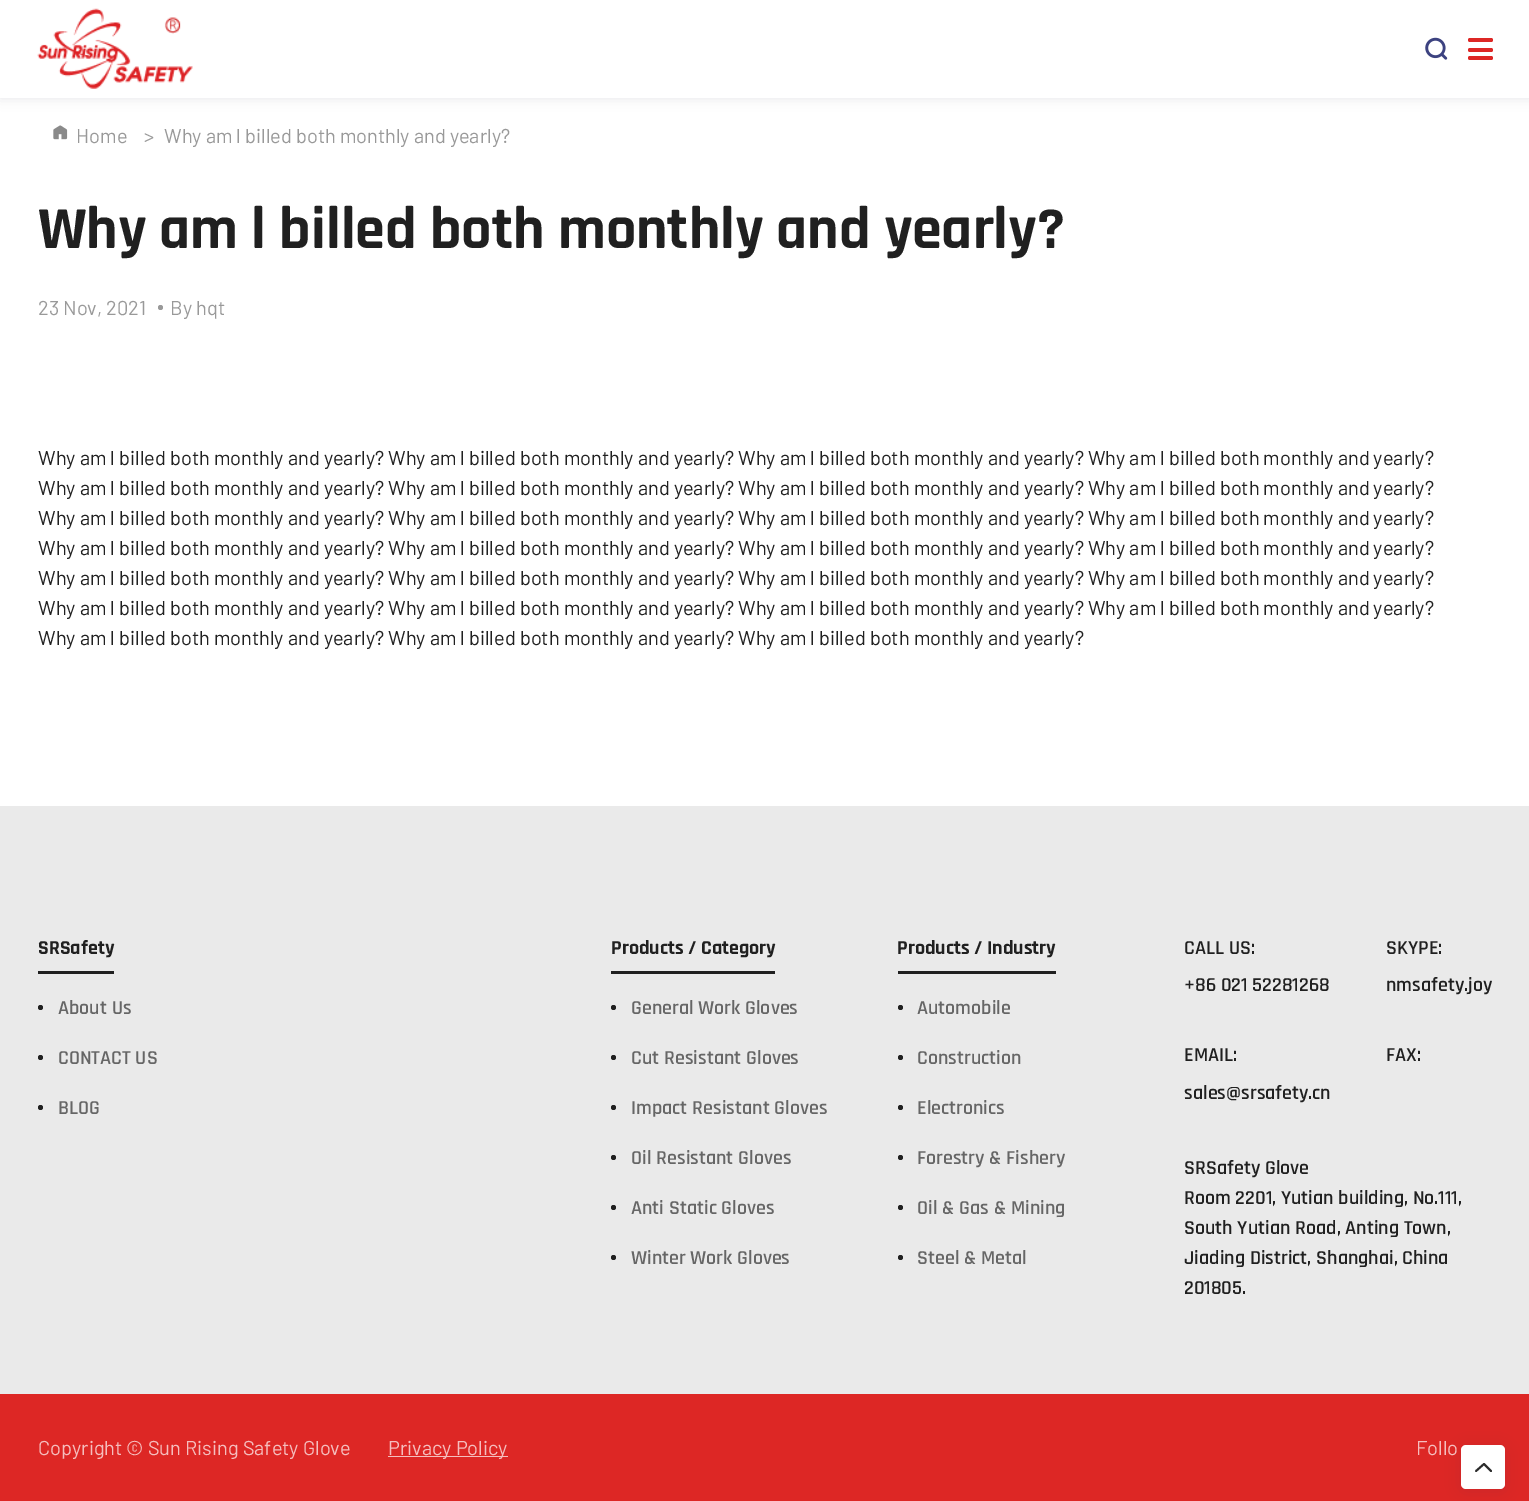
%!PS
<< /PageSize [1529 1501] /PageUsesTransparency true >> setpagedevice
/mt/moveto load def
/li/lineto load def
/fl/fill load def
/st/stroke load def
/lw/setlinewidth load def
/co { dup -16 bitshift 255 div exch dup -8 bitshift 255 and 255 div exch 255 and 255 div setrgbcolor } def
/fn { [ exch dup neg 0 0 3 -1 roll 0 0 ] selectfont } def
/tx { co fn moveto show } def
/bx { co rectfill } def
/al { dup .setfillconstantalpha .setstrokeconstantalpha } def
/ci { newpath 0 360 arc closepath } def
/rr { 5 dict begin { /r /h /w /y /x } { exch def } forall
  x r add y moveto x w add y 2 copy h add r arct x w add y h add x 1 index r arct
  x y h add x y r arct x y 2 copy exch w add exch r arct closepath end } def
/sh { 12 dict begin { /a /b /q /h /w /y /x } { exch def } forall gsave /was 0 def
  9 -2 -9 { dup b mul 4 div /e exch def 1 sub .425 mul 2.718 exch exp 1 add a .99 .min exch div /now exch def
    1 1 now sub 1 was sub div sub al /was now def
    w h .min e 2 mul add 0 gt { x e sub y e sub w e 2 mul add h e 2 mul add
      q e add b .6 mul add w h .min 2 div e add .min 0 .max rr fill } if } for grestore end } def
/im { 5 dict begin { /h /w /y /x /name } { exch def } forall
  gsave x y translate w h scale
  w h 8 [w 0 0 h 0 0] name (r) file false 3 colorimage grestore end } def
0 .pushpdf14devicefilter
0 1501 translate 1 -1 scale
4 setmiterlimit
0 0 1529 1501 16#FFFFFF bx
16#000A20 co
0 0 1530 98 0 6 .1 sh
0 0 1529 98 16#FFFFFF bx
(media/1.raw) 37 8 156 81 im
(media/2.raw) 1425 37 23 23 im
16#DD2725 co
1468 38 25 4 2 rr fl
1468 48 25 4 2 rr fl
1468 56 25 4 2 rr fl
(media/3.raw) 53 125 15 15 im
16#999999 co
160.5 307.5 2.5 ci fl
0 806 1529 588 16#EAEAEA bx
38 971 76 3 16#202020 bx
40.5 1007.5 2.5 ci fl
40.5 1057.5 2.5 ci fl
40.5 1107.5 2.5 ci fl
611 971 164 3 16#202020 bx
613.5 1007.5 2.5 ci fl
613.5 1057.5 2.5 ci fl
613.5 1107.5 2.5 ci fl
613.5 1157.5 2.5 ci fl
613.5 1207.5 2.5 ci fl
613.5 1257.5 2.5 ci fl
898 971 158 3 16#202020 bx
900.5 1007.5 2.5 ci fl
900.5 1057.5 2.5 ci fl
900.5 1107.5 2.5 ci fl
900.5 1157.5 2.5 ci fl
900.5 1207.5 2.5 ci fl
900.5 1257.5 2.5 ci fl
0 1394 1529 107 16#DD2725 bx
388 1456 120 1 16#F5BEBE bx
16#2F4052 co
1461 1448 44 43 5 7.5 .1 sh
16#FFFFFF co
1461 1445 44 44 5 rr fl
16#2A2A2A co
1.9 lw
1 setlinecap
1 setlinejoin
1491 1471 mt 1484 1464 li 1476 1471 li st
(Home) 76 143 /Barlow-Regular 20 16#999999 tx
(>) 144 143 /Barlow-Regular 20 16#999999 tx
(Why am l billed both monthly and yearly?) 164 143 /Barlow-Regular 20 16#999999 tx
(Why am l billed both monthly and yearly?) 38 248 /Rajdhani-Bold 60 16#202020 tx
(23 Nov, 2021) 38 315 /Barlow-Regular 20 16#999999 tx
(By hqt) 170 315 /Barlow-Regular 20 16#999999 tx
(Why am l billed both monthly and yearly? Why am l billed both monthly and yearly? Why am l billed both monthly and yearly? Why am l billed both monthly and yearly?) 38 465 /Barlow-Regular 20 16#202020 tx
(Why am l billed both monthly and yearly? Why am l billed both monthly and yearly? Why am l billed both monthly and yearly? Why am l billed both monthly and yearly?) 38 495 /Barlow-Regular 20 16#202020 tx
(Why am l billed both monthly and yearly? Why am l billed both monthly and yearly? Why am l billed both monthly and yearly? Why am l billed both monthly and yearly?) 38 525 /Barlow-Regular 20 16#202020 tx
(Why am l billed both monthly and yearly? Why am l billed both monthly and yearly? Why am l billed both monthly and yearly? Why am l billed both monthly and yearly?) 38 555 /Barlow-Regular 20 16#202020 tx
(Why am l billed both monthly and yearly? Why am l billed both monthly and yearly? Why am l billed both monthly and yearly? Why am l billed both monthly and yearly?) 38 585 /Barlow-Regular 20 16#202020 tx
(Why am l billed both monthly and yearly? Why am l billed both monthly and yearly? Why am l billed both monthly and yearly? Why am l billed both monthly and yearly?) 38 615 /Barlow-Regular 20 16#202020 tx
(Why am l billed both monthly and yearly? Why am l billed both monthly and yearly? Why am l billed both monthly and yearly?) 38 645 /Barlow-Regular 20 16#202020 tx
(SRSafety) 38 954 /Rajdhani-Bold 20 16#202020 tx
(About Us) 58 1014 /Rajdhani-SemiBold 20 16#666666 tx
(CONTACT US) 58 1064 /Rajdhani-SemiBold 20 16#666666 tx
(BLOG) 58 1114 /Rajdhani-SemiBold 20 16#666666 tx
(Products / Category) 611 954 /Rajdhani-Bold 20 16#202020 tx
(General Work Gloves) 631 1014 /Rajdhani-SemiBold 20 16#666666 tx
(Cut Resistant Gloves) 631 1064 /Rajdhani-SemiBold 20 16#666666 tx
(Impact Resistant Gloves) 631 1114 /Rajdhani-SemiBold 20 16#666666 tx
(Oil Resistant Gloves) 631 1164 /Rajdhani-SemiBold 20 16#666666 tx
(Anti Static Gloves) 631 1214 /Rajdhani-SemiBold 20 16#666666 tx
(Winter Work Gloves) 631 1264 /Rajdhani-SemiBold 20 16#666666 tx
(Products / Industry) 897 954 /Rajdhani-Bold 20 16#202020 tx
(Automobile) 917 1014 /Rajdhani-SemiBold 20 16#666666 tx
(Construction) 917 1064 /Rajdhani-SemiBold 20 16#666666 tx
(Electronics) 917 1114 /Rajdhani-SemiBold 20 16#666666 tx
(Forestry & Fishery) 917 1164 /Rajdhani-SemiBold 20 16#666666 tx
(Oil & Gas & Mining) 917 1214 /Rajdhani-SemiBold 20 16#666666 tx
(Steel & Metal) 917 1264 /Rajdhani-SemiBold 20 16#666666 tx
(CALL US:) 1184 954 /Rajdhani-SemiBold 20 16#202020 tx
(+86 021 52281268) 1184 991 /Rajdhani-SemiBold 20 16#202020 tx
(EMAIL:) 1184 1061 /Rajdhani-SemiBold 20 16#202020 tx
(sales@srsafety.cn) 1184 1099 /Rajdhani-SemiBold 20 16#202020 tx
(SKYPE:) 1386 954 /Rajdhani-SemiBold 20 16#202020 tx
(nmsafety.joy) 1386 991 /Rajdhani-SemiBold 20 16#202020 tx
(FAX:) 1386 1061 /Rajdhani-SemiBold 20 16#202020 tx
(SRSafety Glove) 1184 1174 /Rajdhani-SemiBold 20 16#202020 tx
(Room 2201, Yutian building, No.111,) 1184 1204 /Rajdhani-SemiBold 20 16#202020 tx
(South Yutian Road, Anting Town,) 1184 1234 /Rajdhani-SemiBold 20 16#202020 tx
(Jiading District, Shanghai, China) 1184 1264 /Rajdhani-SemiBold 20 16#202020 tx
(201805.) 1184 1294 /Rajdhani-SemiBold 20 16#202020 tx
(Copyright © Sun Rising Safety Glove) 38 1455 /Barlow-Regular 20 16#F5BEBE tx
(Privacy Policy) 388 1455 /Barlow-Regular 20 16#F5BEBE tx
(Follo) 1416 1455 /Barlow-Regular 20 16#F5BEBE tx
.poppdf14devicefilter showpage
